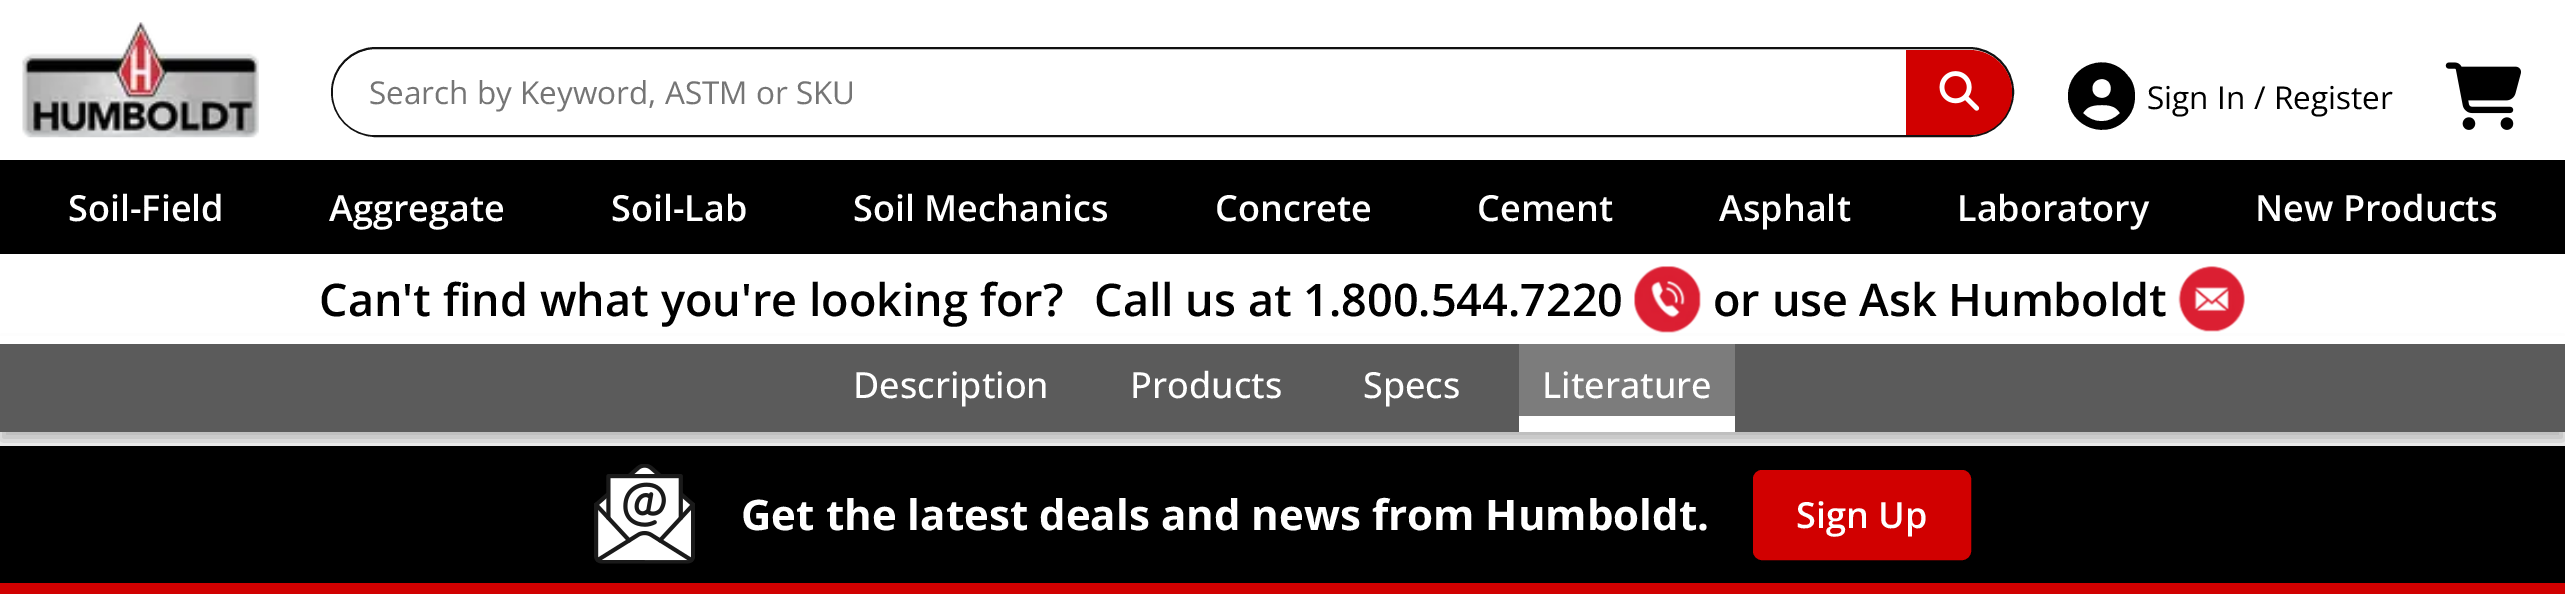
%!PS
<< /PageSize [2565 597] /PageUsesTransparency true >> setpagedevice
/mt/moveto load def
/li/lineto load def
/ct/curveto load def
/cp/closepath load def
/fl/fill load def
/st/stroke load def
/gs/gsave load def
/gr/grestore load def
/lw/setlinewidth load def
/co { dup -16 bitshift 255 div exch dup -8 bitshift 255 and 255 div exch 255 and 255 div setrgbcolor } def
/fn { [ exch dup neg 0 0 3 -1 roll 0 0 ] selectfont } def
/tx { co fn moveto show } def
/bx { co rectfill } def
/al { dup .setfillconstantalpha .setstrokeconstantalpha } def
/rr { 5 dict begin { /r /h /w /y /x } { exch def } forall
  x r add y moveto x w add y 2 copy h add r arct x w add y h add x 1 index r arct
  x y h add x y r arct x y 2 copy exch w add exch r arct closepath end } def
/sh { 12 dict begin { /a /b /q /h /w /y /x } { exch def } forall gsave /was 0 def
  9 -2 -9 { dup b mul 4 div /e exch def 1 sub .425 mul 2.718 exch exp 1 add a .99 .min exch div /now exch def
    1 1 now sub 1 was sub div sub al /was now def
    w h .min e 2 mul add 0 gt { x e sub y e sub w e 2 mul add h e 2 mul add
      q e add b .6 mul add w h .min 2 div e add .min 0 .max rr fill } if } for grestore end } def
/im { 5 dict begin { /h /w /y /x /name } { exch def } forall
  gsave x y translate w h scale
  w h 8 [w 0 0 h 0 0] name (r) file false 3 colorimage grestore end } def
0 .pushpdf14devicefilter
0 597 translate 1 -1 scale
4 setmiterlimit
0 0 2565 597 16#FFFFFF bx
0 446 2565 137 16#000000 bx
(media/6.raw) 594 464 101 100 im
0 351 2565 90 0 8 .3 sh
0 336 2565 8 16#FFFFFF bx
(media/1.raw) 22 22 237 116 im
16#111111 co
2 lw
332 48 1681 88 44 rr st
16#FFFFFF co
375.5 50 mt 1901 50 li 1904 50 1906 52 1906 55 ct 1906 130 li 1906 133 1904 135 1901 135 ct 375.5 135 li 352 135 333 116 333 92.5 ct 333 69 352 50 375.5 50 ct cp fl
16#D10000 co
1906 50 mt 1969.5 50 li 1993 50 2012 69 2012 92.5 ct 2012 116 1993 135 1969.5 135 ct 1906 135 li cp fl
(media/2.raw) 1939 71 41 40 im
16#000000 co
2120 113 mt 2116 106 2109 105 2102 105 ct 2094 105 2087 106 2083 113 ct 2093 124 2110 124 2120 113 ct cp 2068 96 mt 2068 64 2109 50 2128 76 ct 2133 81 2135 89 2135 96 ct 2135 104 2133 111 2128 117 ct 2109 142 2068 128 2068 96 ct cp 2102 98 mt 2114 98 2114 79 2102 79 ct 2089 79 2089 98 2102 98 ct cp fl
(media/3.raw) 2445 62 76 68 im
0 160 2565 94 16#000000 bx
(media/4.raw) 1634 266 67 67 im
(media/5.raw) 2178 266 67 66 im
0 344 2565 88 16#5B5B5B bx
1519 344 216 72 16#7C7C7C bx
1519 416 216 16 16#FFFFFF bx
0 583 2565 11 16#D10000 bx
1754 471 216 88 8 rr gs fl gr
st
(Search by Keyword, ASTM or SKU) 369 104 /OpenSans-Regular 31.5 16#757575 tx
(Sign In) 2147 109 /OpenSans-Regular 31.5 16#000000 tx
(/ Register) 2254 109 /OpenSans-Regular 31.5 16#000000 tx
(Soil-Field) 68 221 /OpenSans-SemiBold 36 16#FFFFFF tx
(Aggregate) 329 221 /OpenSans-SemiBold 36 16#FFFFFF tx
(Soil-Lab) 611 221 /OpenSans-SemiBold 36 16#FFFFFF tx
(Soil Mechanics) 853 221 /OpenSans-SemiBold 36 16#FFFFFF tx
(Concrete) 1215 221 /OpenSans-SemiBold 36 16#FFFFFF tx
(Cement) 1477 221 /OpenSans-SemiBold 36 16#FFFFFF tx
(Asphalt) 1719 221 /OpenSans-SemiBold 36 16#FFFFFF tx
(Laboratory) 1957 221 /OpenSans-SemiBold 36 16#FFFFFF tx
(New Products) 2255 221 /OpenSans-SemiBold 36 16#FFFFFF tx
(Can't find what you're looking for?) 319 316 /OpenSans-SemiBold 45 16#000000 tx
(Call us at) 1094 316 /OpenSans-SemiBold 45 16#000000 tx
(1.800.544.7220) 1303 316 /OpenSans-SemiBold 45 16#000000 tx
(or use) 1713 316 /OpenSans-SemiBold 45 16#000000 tx
(Ask Humboldt) 1859 316 /OpenSans-SemiBold 45 16#000000 tx
(Description) 853 398 /OpenSans-Medium 36 16#FFFFFF tx
(Products) 1130 398 /OpenSans-Medium 36 16#FFFFFF tx
(Specs) 1363 398 /OpenSans-Medium 36 16#FFFFFF tx
(Literature) 1542 398 /OpenSans-Medium 36 16#FFFFFF tx
(Get the latest deals and news from Humboldt.) 741 530 /OpenSans-Bold 42.1 16#FFFFFF tx
(Sign Up) 1796 528 /OpenSans-SemiBold 36 16#FFFFFF tx
.poppdf14devicefilter showpage
